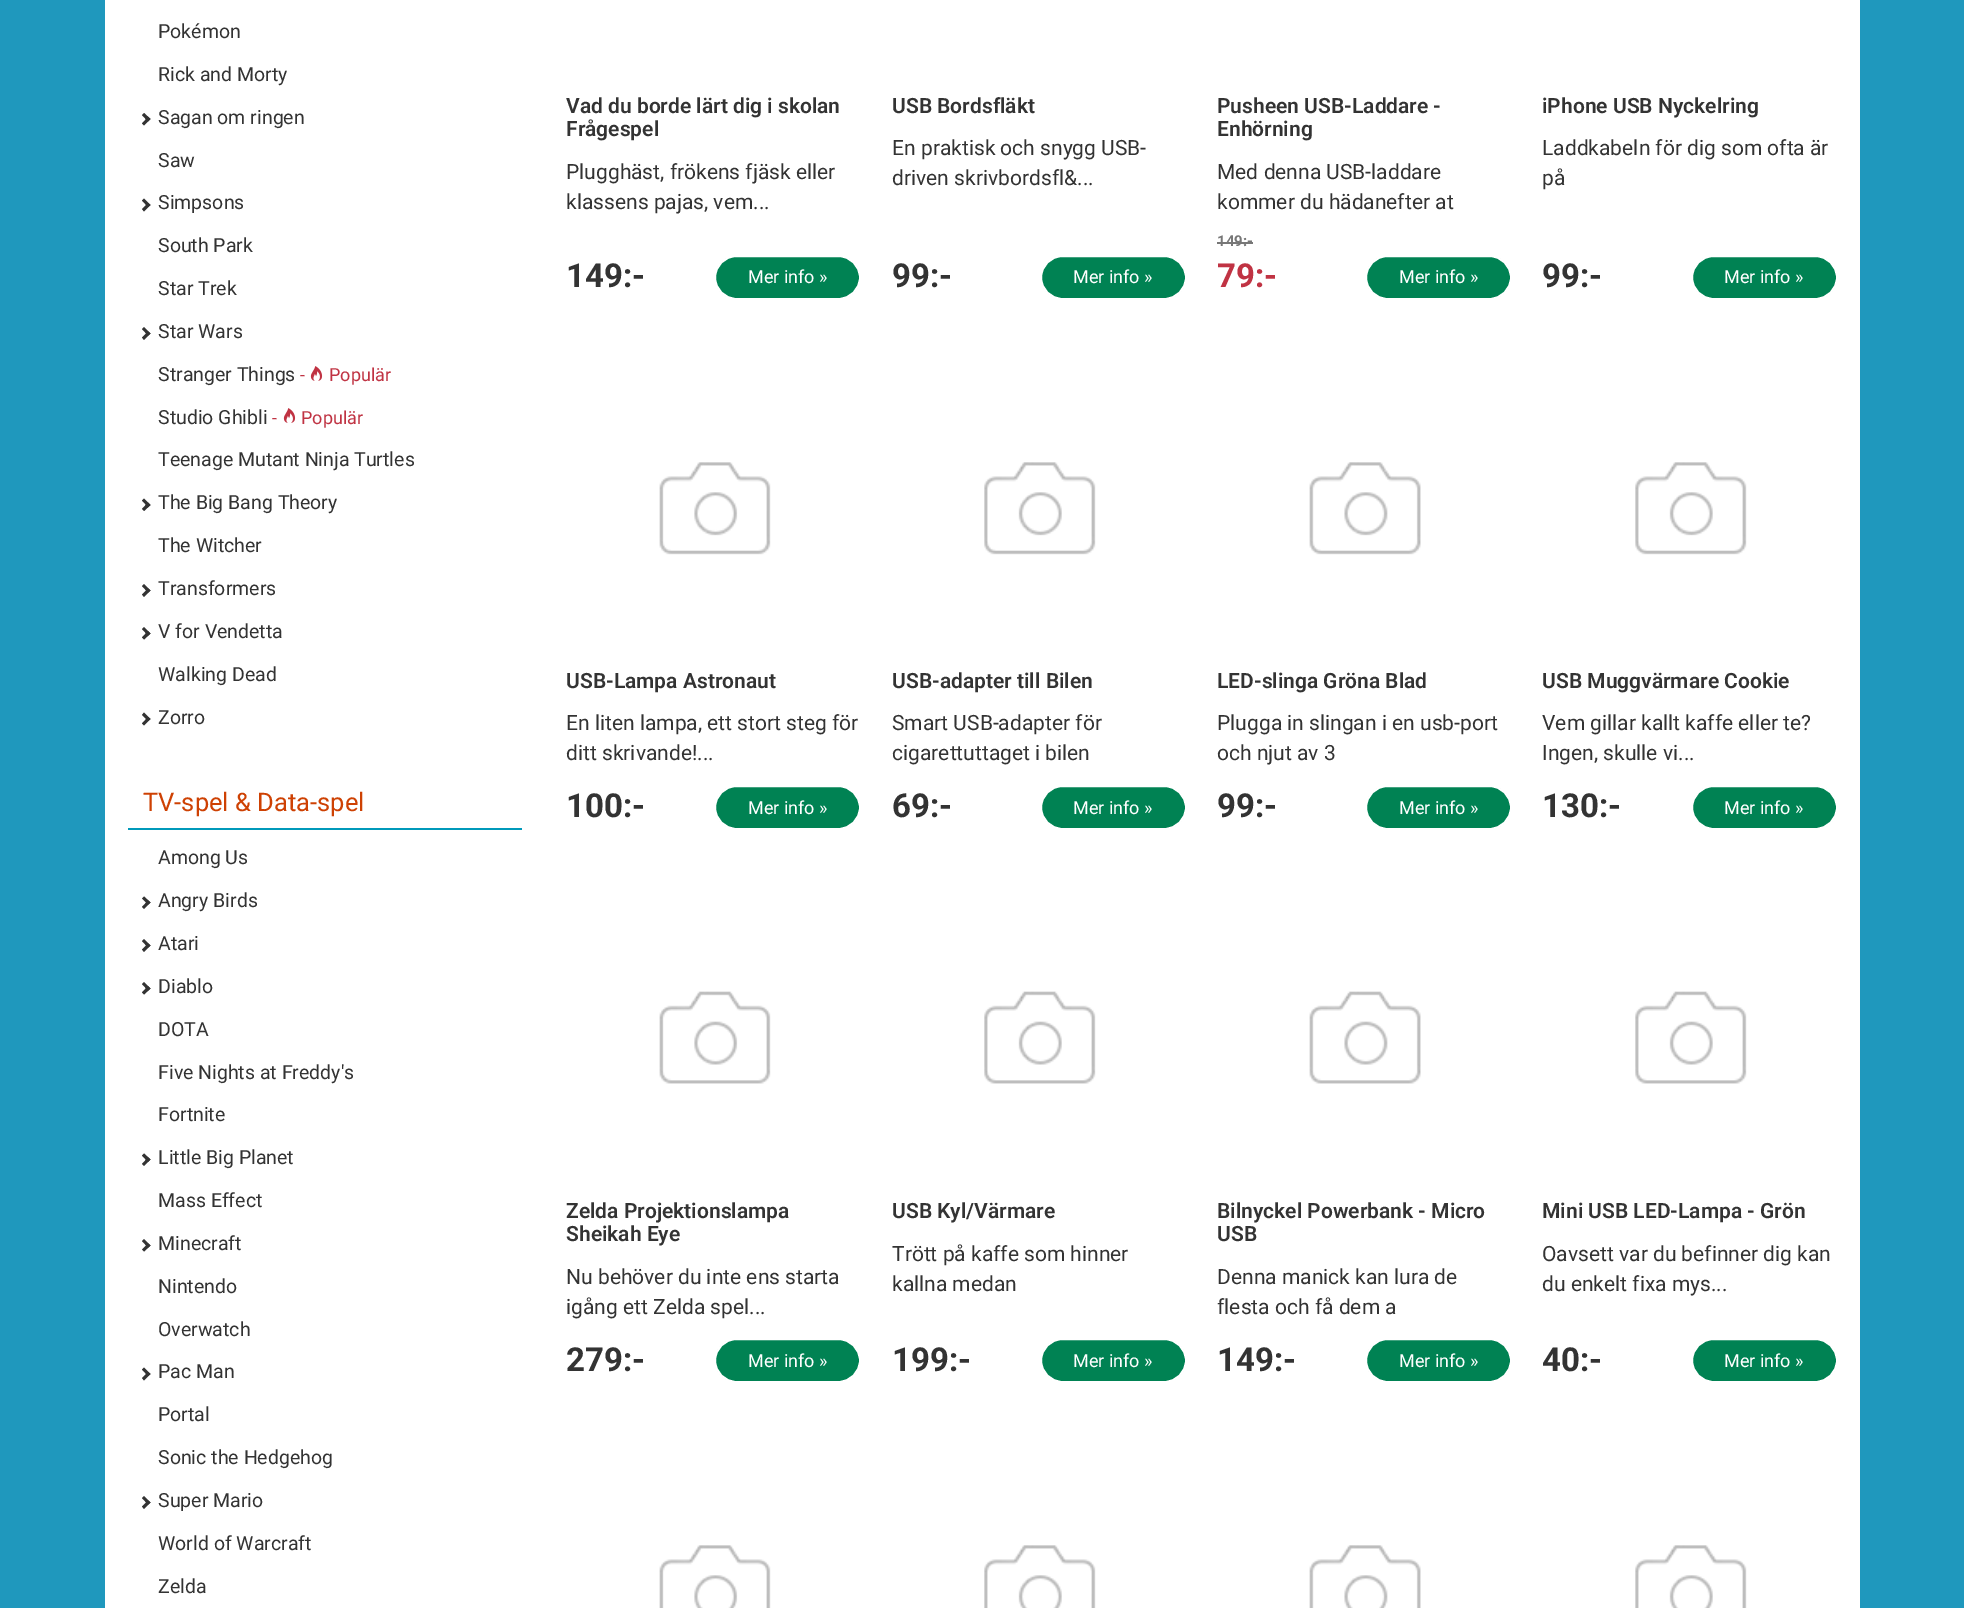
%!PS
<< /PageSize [1964 1608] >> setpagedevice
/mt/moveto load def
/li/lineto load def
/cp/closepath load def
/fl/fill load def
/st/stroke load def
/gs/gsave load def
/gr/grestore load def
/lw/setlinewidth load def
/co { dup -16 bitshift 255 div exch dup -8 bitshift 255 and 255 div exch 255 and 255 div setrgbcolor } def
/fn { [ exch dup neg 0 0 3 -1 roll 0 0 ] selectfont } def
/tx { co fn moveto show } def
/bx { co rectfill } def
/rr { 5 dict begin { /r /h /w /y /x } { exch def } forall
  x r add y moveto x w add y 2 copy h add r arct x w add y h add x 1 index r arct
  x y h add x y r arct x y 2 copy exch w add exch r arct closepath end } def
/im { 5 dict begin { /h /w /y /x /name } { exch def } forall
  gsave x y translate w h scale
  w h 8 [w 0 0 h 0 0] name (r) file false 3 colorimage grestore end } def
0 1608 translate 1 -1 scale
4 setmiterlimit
0 0 1964 1608 16#1F98BD bx
105 0 1755 1608 16#FFFFFF bx
16#333333 co
144 113 mt 150.5 119 li 148 121.5 li 142 115 li cp fl
148 117 mt 150.5 119 li 144 125.5 li 142 123.5 li cp fl
144 198.5 mt 150.5 205 li 148 207 li 142 200.5 li cp fl
148 203 mt 150.5 205 li 144 211.5 li 142 209 li cp fl
144 327 mt 150.5 333.5 li 148 335.5 li 142 329 li cp fl
148 331.5 mt 150.5 333.5 li 144 340 li 142 337.5 li cp fl
(media/1.raw) 310 366 13 15 im
(media/1.raw) 283 408 13 15 im
144 498.5 mt 150.5 505 li 148 507 li 142 500.5 li cp fl
148 502.5 mt 150.5 505 li 144 511 li 142 509 li cp fl
144 584 mt 150.5 590.5 li 148 592.5 li 142 586 li cp fl
148 588.5 mt 150.5 590.5 li 144 597 li 142 594.5 li cp 144 627 mt 150.5 633.5 li 148 635.5 li 142 629 li cp fl
148 631 mt 150.5 633.5 li 144 639.5 li 142 637.5 li cp fl
144 712.5 mt 150.5 719 li 148 721 li 142 715 li cp fl
148 717 mt 150.5 719 li 144 725.5 li 142 723.5 li cp fl
128 828 394 2 16#0099BA bx
16#333333 co
144 896.5 mt 150.5 902.5 li 148 904.5 li 142 898.5 li cp fl
148 900.5 mt 150.5 902.5 li 144 909 li 142 907 li cp 144 939 mt 150.5 945.5 li 148 947.5 li 142 941 li cp fl
148 943.5 mt 150.5 945.5 li 144 952 li 142 949.5 li cp 144 982 mt 150.5 988.5 li 148 990.5 li 142 984 li cp fl
148 986 mt 150.5 988.5 li 144 994.5 li 142 992.5 li cp fl
144 1153.5 mt 150.5 1159.5 li 148 1162 li 142 1155.5 li cp fl
148 1157.5 mt 150.5 1159.5 li 144 1166 li 142 1164 li cp fl
144 1239 mt 150.5 1245.5 li 148 1247.5 li 142 1241 li cp fl
148 1243.5 mt 150.5 1245.5 li 144 1251.5 li 142 1249.5 li cp fl
144 1367.5 mt 150.5 1374 li 148 1376 li 142 1369.5 li cp fl
148 1372 mt 150.5 1374 li 144 1380.5 li 142 1378 li cp fl
144 1496 mt 150.5 1502.5 li 148 1504.5 li 142 1498 li cp fl
148 1500.5 mt 150.5 1502.5 li 144 1509 li 142 1506.5 li cp fl
16#008253 co
715 256 145 43 21.5 rr gs fl gr
16#FFFFFF co
2 lw
st
16#008253 co
1041 256 145 43 21.5 rr gs fl gr
16#FFFFFF co
st
1217 242 36 2 16#777777 bx
16#008253 co
1366 256 145 43 21.5 rr gs fl gr
16#FFFFFF co
st
16#008253 co
1692 256 145 43 21.5 rr gs fl gr
16#FFFFFF co
st
(media/2.raw) 659 462 112 93 im
16#008253 co
715 786 145 43 21.5 rr gs fl gr
16#FFFFFF co
st
(media/3.raw) 984 462 112 93 im
16#008253 co
1041 786 145 43 21.5 rr gs fl gr
16#FFFFFF co
st
(media/4.raw) 1309 462 112 93 im
16#008253 co
1366 786 145 43 21.5 rr gs fl gr
16#FFFFFF co
st
(media/3.raw) 1635 462 112 93 im
16#008253 co
1692 786 145 43 21.5 rr gs fl gr
16#FFFFFF co
st
(media/5.raw) 659 991 112 93 im
16#008253 co
715 1339 145 43 21.5 rr gs fl gr
16#FFFFFF co
st
(media/6.raw) 984 991 112 93 im
16#008253 co
1041 1339 145 43 21.5 rr gs fl gr
16#FFFFFF co
st
(media/7.raw) 1309 991 112 93 im
16#008253 co
1366 1339 145 43 21.5 rr gs fl gr
16#FFFFFF co
st
(media/6.raw) 1635 991 112 93 im
16#008253 co
1692 1339 145 43 21.5 rr gs fl gr
16#FFFFFF co
st
(media/8.raw) 659 1545 112 63 im
(media/9.raw) 984 1545 112 63 im
(media/10.raw) 1309 1545 112 63 im
(media/9.raw) 1635 1545 112 63 im
(Pokémon) 158 38 /Roboto-Regular 19.5 16#333333 tx
(Rick and Morty) 158 81 /Roboto-Regular 19.5 16#333333 tx
(Sagan om ringen) 158 124 /Roboto-Regular 19.5 16#333333 tx
(Saw) 158 167 /Roboto-Regular 19.5 16#333333 tx
(Simpsons) 158 209 /Roboto-Regular 19.5 16#333333 tx
(South Park) 158 252 /Roboto-Regular 19.5 16#333333 tx
(Star Trek) 158 295 /Roboto-Regular 19.5 16#333333 tx
(Star Wars) 158 338 /Roboto-Regular 19.5 16#333333 tx
(Stranger Things) 158 381 /Roboto-Regular 19.5 16#333333 tx
(-) 300 381 /Roboto-Regular 18 16#C03343 tx
(Populär) 329 381 /Roboto-Regular 18 16#C03343 tx
(Studio Ghibli) 158 424 /Roboto-Regular 19.5 16#333333 tx
(-) 272 424 /Roboto-Regular 18 16#C03343 tx
(Populär) 301 424 /Roboto-Regular 18 16#C03343 tx
(Teenage Mutant Ninja Turtles) 158 466 /Roboto-Regular 19.5 16#333333 tx
(The Big Bang Theory) 158 509 /Roboto-Regular 19.5 16#333333 tx
(The Witcher) 158 552 /Roboto-Regular 19.5 16#333333 tx
(Transformers) 158 595 /Roboto-Regular 19.5 16#333333 tx
(V for Vendetta) 158 638 /Roboto-Regular 19.5 16#333333 tx
(Walking Dead) 158 681 /Roboto-Regular 19.5 16#333333 tx
(Zorro) 158 724 /Roboto-Regular 19.5 16#333333 tx
(TV-spel & Data-spel) 143 811 /Roboto-Regular 25.5 16#CE4103 tx
(Among Us) 158 864 /Roboto-Regular 19.5 16#333333 tx
(Angry Birds) 158 907 /Roboto-Regular 19.5 16#333333 tx
(Atari) 158 950 /Roboto-Regular 19.5 16#333333 tx
(Diablo) 158 993 /Roboto-Regular 19.5 16#333333 tx
(DOTA) 158 1036 /Roboto-Regular 19.5 16#333333 tx
(Five Nights at Freddy's) 158 1079 /Roboto-Regular 19.5 16#333333 tx
(Fortnite) 158 1121 /Roboto-Regular 19.5 16#333333 tx
(Little Big Planet) 158 1164 /Roboto-Regular 19.5 16#333333 tx
(Mass Effect) 158 1207 /Roboto-Regular 19.5 16#333333 tx
(Minecraft) 158 1250 /Roboto-Regular 19.5 16#333333 tx
(Nintendo) 158 1293 /Roboto-Regular 19.5 16#333333 tx
(Overwatch) 158 1336 /Roboto-Regular 19.5 16#333333 tx
(Pac Man) 158 1378 /Roboto-Regular 19.5 16#333333 tx
(Portal) 158 1421 /Roboto-Regular 19.5 16#333333 tx
(Sonic the Hedgehog) 158 1464 /Roboto-Regular 19.5 16#333333 tx
(Super Mario) 158 1507 /Roboto-Regular 19.5 16#333333 tx
(World of Warcraft) 158 1550 /Roboto-Regular 19.5 16#333333 tx
(Zelda) 158 1593 /Roboto-Regular 19.5 16#333333 tx
(Vad du borde lärt dig i skolan) 566 113 /Roboto-SemiBold 21 16#333333 tx
(Frågespel) 566 136 /Roboto-SemiBold 21 16#333333 tx
(Plugghäst, frökens fjäsk eller) 566 179 /Roboto-Regular 21 16#333333 tx
(klassens pajas, vem...) 566 209 /Roboto-Regular 21 16#333333 tx
(149:-) 566 287 /Roboto-Bold 33 16#333333 tx
(Mer info ») 748 283 /Roboto-Regular 18 16#FFFFFF tx
(USB Bordsfläkt) 892 113 /Roboto-SemiBold 21 16#333333 tx
(En praktisk och snygg USB-) 892 155 /Roboto-Regular 21 16#333333 tx
(driven skrivbordsfl&...) 892 185 /Roboto-Regular 21 16#333333 tx
(99:-) 892 287 /Roboto-Bold 33 16#333333 tx
(Mer info ») 1073 283 /Roboto-Regular 18 16#FFFFFF tx
(Pusheen USB-Laddare -) 1217 113 /Roboto-SemiBold 21 16#333333 tx
(Enhörning) 1217 136 /Roboto-SemiBold 21 16#333333 tx
(Med denna USB-laddare) 1217 179 /Roboto-Regular 21 16#333333 tx
(kommer du hädanefter at) 1217 209 /Roboto-Regular 21 16#333333 tx
(149:-) 1217 246 /Roboto-Bold 15 16#777777 tx
(79:-) 1217 287 /Roboto-Bold 33 16#C03343 tx
(Mer info ») 1399 283 /Roboto-Regular 18 16#FFFFFF tx
(iPhone USB Nyckelring) 1542 113 /Roboto-SemiBold 21 16#333333 tx
(Laddkabeln för dig som ofta är) 1542 155 /Roboto-Regular 21 16#333333 tx
(på) 1542 185 /Roboto-Regular 21 16#333333 tx
(99:-) 1542 287 /Roboto-Bold 33 16#333333 tx
(Mer info ») 1724 283 /Roboto-Regular 18 16#FFFFFF tx
(USB-Lampa Astronaut) 566 688 /Roboto-SemiBold 21 16#333333 tx
(En liten lampa, ett stort steg för) 566 730 /Roboto-Regular 21 16#333333 tx
(ditt skrivande!...) 566 760 /Roboto-Regular 21 16#333333 tx
(100:-) 566 817 /Roboto-Bold 33 16#333333 tx
(Mer info ») 748 814 /Roboto-Regular 18 16#FFFFFF tx
(USB-adapter till Bilen) 892 688 /Roboto-SemiBold 21 16#333333 tx
(Smart USB-adapter för) 892 730 /Roboto-Regular 21 16#333333 tx
(cigarettuttaget i bilen) 892 760 /Roboto-Regular 21 16#333333 tx
(69:-) 892 817 /Roboto-Bold 33 16#333333 tx
(Mer info ») 1073 814 /Roboto-Regular 18 16#FFFFFF tx
(LED-slinga Gröna Blad) 1217 688 /Roboto-SemiBold 21 16#333333 tx
(Plugga in slingan i en usb-port) 1217 730 /Roboto-Regular 21 16#333333 tx
(och njut av 3) 1217 760 /Roboto-Regular 21 16#333333 tx
(99:-) 1217 817 /Roboto-Bold 33 16#333333 tx
(Mer info ») 1399 814 /Roboto-Regular 18 16#FFFFFF tx
(USB Muggvärmare Cookie) 1542 688 /Roboto-SemiBold 21 16#333333 tx
(Vem gillar kallt kaffe eller te?) 1542 730 /Roboto-Regular 21 16#333333 tx
(Ingen, skulle vi...) 1542 760 /Roboto-Regular 21 16#333333 tx
(130:-) 1542 817 /Roboto-Bold 33 16#333333 tx
(Mer info ») 1724 814 /Roboto-Regular 18 16#FFFFFF tx
(Zelda Projektionslampa) 566 1218 /Roboto-SemiBold 21 16#333333 tx
(Sheikah Eye) 566 1241 /Roboto-SemiBold 21 16#333333 tx
(Nu behöver du inte ens starta) 566 1284 /Roboto-Regular 21 16#333333 tx
(igång ett Zelda spel...) 566 1314 /Roboto-Regular 21 16#333333 tx
(279:-) 566 1371 /Roboto-Bold 33 16#333333 tx
(Mer info ») 748 1367 /Roboto-Regular 18 16#FFFFFF tx
(USB Kyl/Värmare) 892 1218 /Roboto-SemiBold 21 16#333333 tx
(Trött på kaffe som hinner) 892 1261 /Roboto-Regular 21 16#333333 tx
(kallna medan) 892 1291 /Roboto-Regular 21 16#333333 tx
(199:-) 892 1371 /Roboto-Bold 33 16#333333 tx
(Mer info ») 1073 1367 /Roboto-Regular 18 16#FFFFFF tx
(Bilnyckel Powerbank - Micro) 1217 1218 /Roboto-SemiBold 21 16#333333 tx
(USB) 1217 1241 /Roboto-SemiBold 21 16#333333 tx
(Denna manick kan lura de) 1217 1284 /Roboto-Regular 21 16#333333 tx
(flesta och få dem a) 1217 1314 /Roboto-Regular 21 16#333333 tx
(149:-) 1217 1371 /Roboto-Bold 33 16#333333 tx
(Mer info ») 1399 1367 /Roboto-Regular 18 16#FFFFFF tx
(Mini USB LED-Lampa - Grön) 1542 1218 /Roboto-SemiBold 21 16#333333 tx
(Oavsett var du befinner dig kan) 1542 1261 /Roboto-Regular 21 16#333333 tx
(du enkelt fixa mys...) 1542 1291 /Roboto-Regular 21 16#333333 tx
(40:-) 1542 1371 /Roboto-Bold 33 16#333333 tx
(Mer info ») 1724 1367 /Roboto-Regular 18 16#FFFFFF tx
showpage
